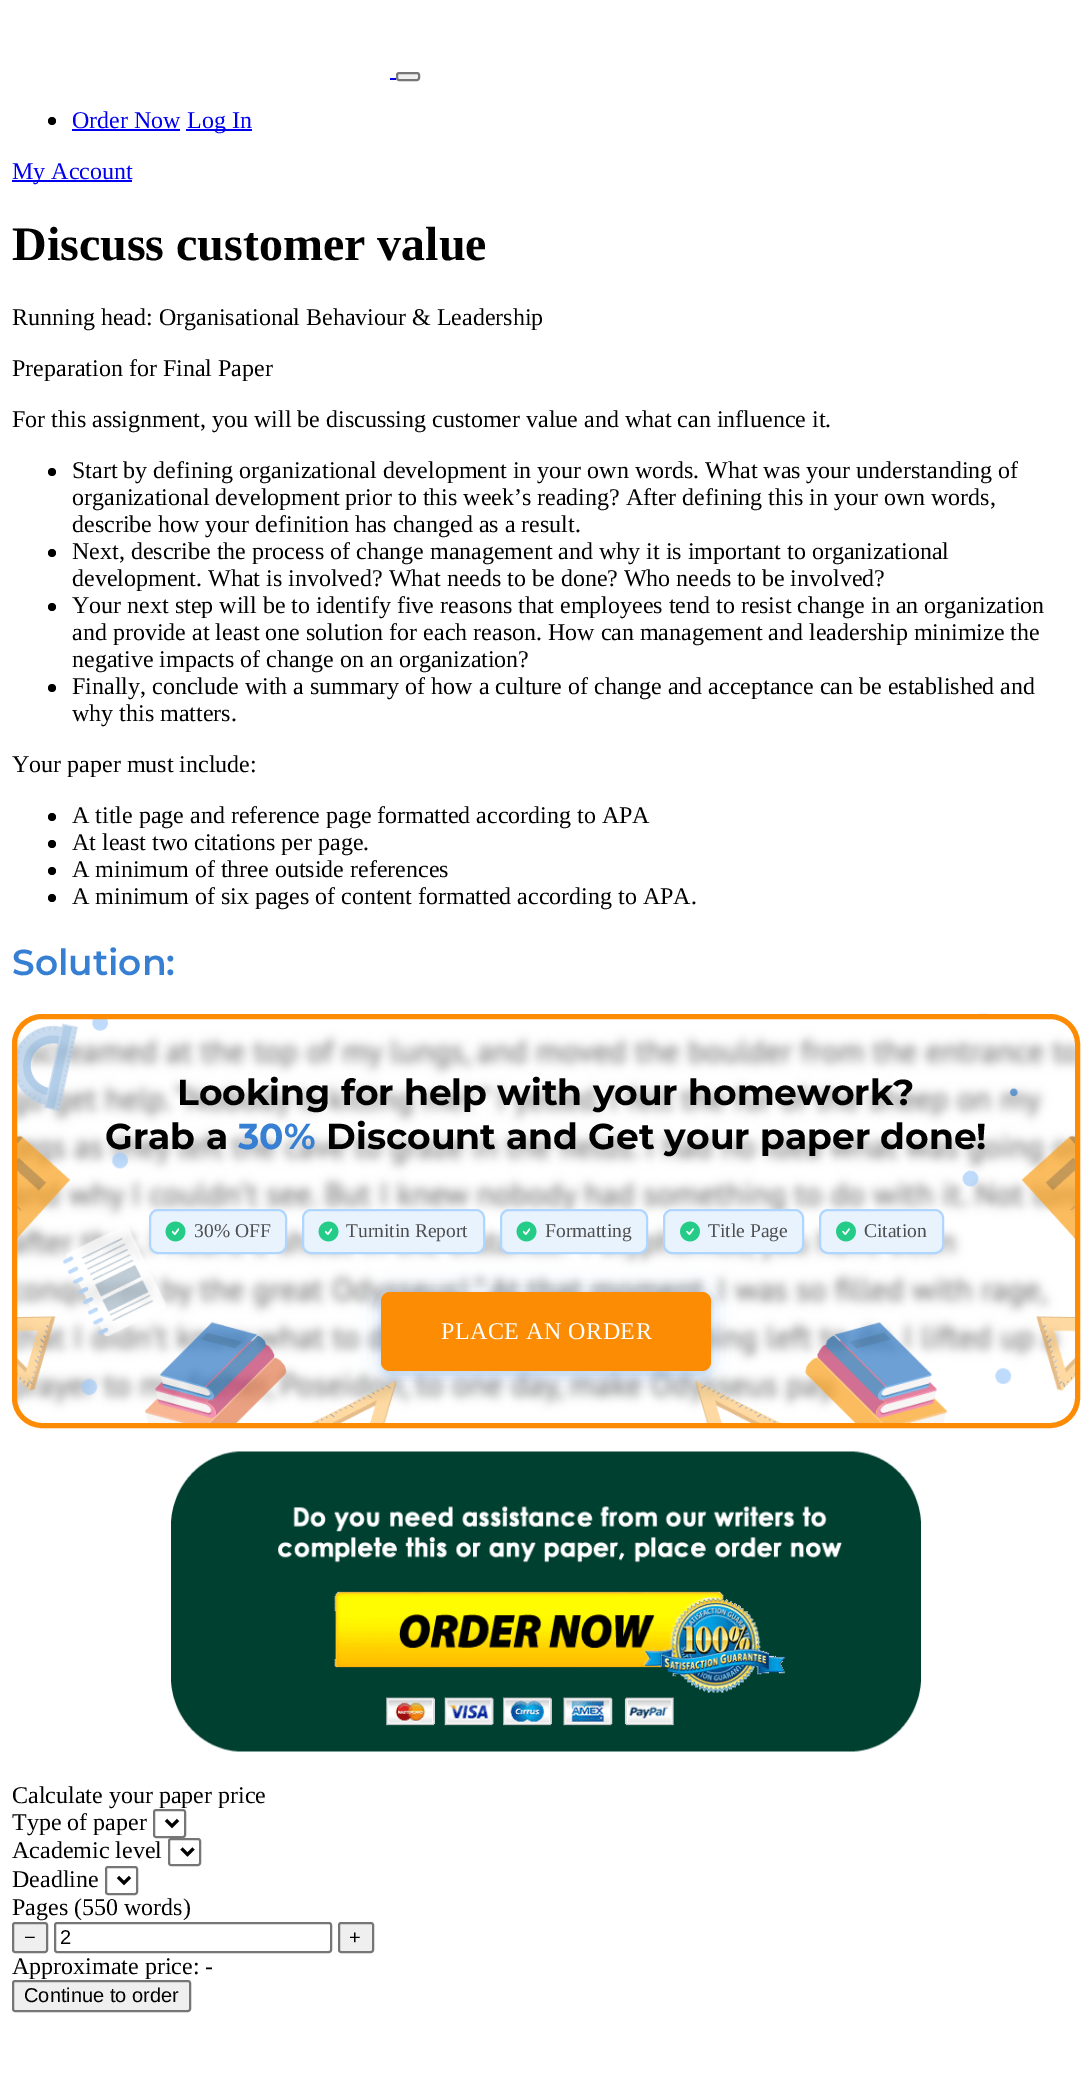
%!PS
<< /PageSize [1092 2085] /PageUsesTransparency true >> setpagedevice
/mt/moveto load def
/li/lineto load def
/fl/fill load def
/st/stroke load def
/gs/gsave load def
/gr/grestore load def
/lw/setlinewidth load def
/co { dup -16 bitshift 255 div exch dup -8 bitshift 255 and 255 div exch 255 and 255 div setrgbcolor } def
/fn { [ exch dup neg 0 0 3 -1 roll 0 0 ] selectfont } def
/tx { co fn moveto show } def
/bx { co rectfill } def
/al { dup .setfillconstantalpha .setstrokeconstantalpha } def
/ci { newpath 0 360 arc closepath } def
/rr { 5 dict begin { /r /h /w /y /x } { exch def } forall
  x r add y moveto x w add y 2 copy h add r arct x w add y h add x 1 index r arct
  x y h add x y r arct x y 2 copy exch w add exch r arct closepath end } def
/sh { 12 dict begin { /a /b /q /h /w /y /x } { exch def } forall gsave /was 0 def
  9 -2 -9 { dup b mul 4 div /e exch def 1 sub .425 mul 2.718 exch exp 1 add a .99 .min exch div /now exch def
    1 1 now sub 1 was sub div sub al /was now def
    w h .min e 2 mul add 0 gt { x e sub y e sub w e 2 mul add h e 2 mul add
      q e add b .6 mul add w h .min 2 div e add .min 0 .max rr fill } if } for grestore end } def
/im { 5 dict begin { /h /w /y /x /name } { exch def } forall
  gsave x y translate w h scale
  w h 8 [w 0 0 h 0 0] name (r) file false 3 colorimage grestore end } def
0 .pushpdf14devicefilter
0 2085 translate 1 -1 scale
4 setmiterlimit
0 0 1092 2085 16#FFFFFF bx
390 78 6 2 16#0000EE bx
16#EFEFEF co
397 73 22 7 2 rr gs fl gr
16#767676 co
2 lw
st
16#000000 co
52 121 4 ci fl
72 129 108 2 16#0000EE bx
186 129 66 2 16#0000EE bx
12 180 120 2 16#0000EE bx
16#000000 co
52 472 4 ci fl
52 553 4 ci fl
52 607 4 ci fl
52 688 4 ci fl
52 817 4 ci fl
52 844 4 ci fl
52 871 4 ci fl
52 898 4 ci fl
(media/1.raw) 12 1013 1068 410 im
16#FD8C04 co
5 lw
14.5 1016.5 1063 409 27.5 rr st
16#E9F3FE co
150 1210 136 43 8 rr gs fl gr
16#AFD6FF co
2 lw
st
(media/2.raw) 165 1221 21 21 im
16#E9F3FE co
303 1210 181 43 8 rr gs fl gr
16#AFD6FF co
st
(media/2.raw) 318 1221 21 21 im
16#E9F3FE co
501 1210 146 43 8 rr gs fl gr
16#AFD6FF co
st
(media/2.raw) 516 1221 21 21 im
16#E9F3FE co
664 1210 139 43 8 rr gs fl gr
16#AFD6FF co
st
(media/3.raw) 680 1221 20 21 im
16#E9F3FE co
820 1210 123 43 8 rr gs fl gr
16#AFD6FF co
st
(media/3.raw) 836 1221 20 21 im
16#367FD3 co
381 1293 330 80 9 12 .18 sh
381 1298 330 79 9 4.5 .2 sh
16#FD8C05 co
381 1292 330 79 9 rr fl
(media/4.raw) 171 1451 750 301 im
16#767676 co
154 1810 31 27 2 rr st
16#000000 co
3 lw
166 1820 mt 172 1826 li 178 1820 li st
16#767676 co
2 lw
169 1839 31 26 2 rr st
16#000000 co
3 lw
181.5 1848.5 mt 187.5 1854.5 li 193.5 1848.5 li st
16#767676 co
2 lw
106 1867 31 27 2 rr st
16#000000 co
3 lw
118 1877 mt 124 1883 li 130 1877 li st
16#EFEFEF co
13 1923 34 29 2 rr gs fl gr
16#767676 co
2 lw
st
55 1923 276 29 2 rr st
16#EFEFEF co
339 1923 34 29 2 rr gs fl gr
16#767676 co
st
16#EFEFEF co
13 1981 177 30 2 rr gs fl gr
16#767676 co
st
(Order Now) 72 128 /LiberationSerif-Regular 24 16#0000EE tx
(Log In) 187 128 /LiberationSerif-Regular 24 16#0000EE tx
(My Account) 12 179 /LiberationSerif-Regular 24 16#0000EE tx
(Discuss customer value) 12 260 /LiberationSerif-Bold 48 16#000000 tx
(Running head: Organisational Behaviour & Leadership) 12 325 /LiberationSerif-Regular 24 16#000000 tx
(Preparation for Final Paper) 12 376 /LiberationSerif-Regular 24 16#000000 tx
(For this assignment, you will be discussing customer value and what can influence it.) 12 427 /LiberationSerif-Regular 24 16#000000 tx
(Start by defining organizational development in your own words. What was your understanding of) 72 478 /LiberationSerif-Regular 24 16#000000 tx
(organizational development prior to this week’s reading? After defining this in your own words,) 72 505 /LiberationSerif-Regular 24 16#000000 tx
(describe how your definition has changed as a result.) 72 532 /LiberationSerif-Regular 24 16#000000 tx
(Next, describe the process of change management and why it is important to organizational) 72 559 /LiberationSerif-Regular 24 16#000000 tx
(development. What is involved? What needs to be done? Who needs to be involved?) 72 586 /LiberationSerif-Regular 24 16#000000 tx
(Your next step will be to identify five reasons that employees tend to resist change in an organization) 72 613 /LiberationSerif-Regular 24 16#000000 tx
(and provide at least one solution for each reason. How can management and leadership minimize the) 72 640 /LiberationSerif-Regular 24 16#000000 tx
(negative impacts of change on an organization?) 72 667 /LiberationSerif-Regular 24 16#000000 tx
(Finally, conclude with a summary of how a culture of change and acceptance can be established and) 72 694 /LiberationSerif-Regular 24 16#000000 tx
(why this matters.) 72 721 /LiberationSerif-Regular 24 16#000000 tx
(Your paper must include:) 12 772 /LiberationSerif-Regular 24 16#000000 tx
(A title page and reference page formatted according to APA) 72 823 /LiberationSerif-Regular 24 16#000000 tx
(At least two citations per page.) 72 850 /LiberationSerif-Regular 24 16#000000 tx
(A minimum of three outside references) 72 877 /LiberationSerif-Regular 24 16#000000 tx
(A minimum of six pages of content formatted according to APA.) 72 904 /LiberationSerif-Regular 24 16#000000 tx
(Solution:) 12 975 /Montserrat-SemiBold 36 16#367FD3 tx
(Looking for help with your homework?) 177 1105 /Montserrat-Bold 36 16#000000 tx
(Grab a) 105 1149 /Montserrat-Bold 36 16#000000 tx
(30%) 238 1149 /Montserrat-Bold 36 16#367FD3 tx
(Discount and Get your paper done!) 326 1149 /Montserrat-Bold 36 16#000000 tx
(30% OFF) 194 1237 /LiberationSerif-Regular 19.5 16#4E4E4E tx
(Turnitin Report) 346 1237 /LiberationSerif-Regular 19.5 16#4E4E4E tx
(Formatting) 545 1237 /LiberationSerif-Regular 19.5 16#4E4E4E tx
(Title Page) 708 1237 /LiberationSerif-Regular 19.5 16#4E4E4E tx
(Citation) 864 1237 /LiberationSerif-Regular 19.5 16#4E4E4E tx
/LiberationSerif-Regular 24 fn
16#FFFFFF co
441 1339 mt .5 0 (PLACE AN ORDER) ashow
(Calculate your paper price) 12 1803 /LiberationSerif-Regular 24 16#000000 tx
(Type of paper) 12 1830 /LiberationSerif-Regular 24 16#000000 tx
(Academic level) 12 1858 /LiberationSerif-Regular 24 16#000000 tx
(Deadline) 12 1887 /LiberationSerif-Regular 24 16#000000 tx
(Pages \(550 words\)) 12 1915 /LiberationSerif-Regular 24 16#000000 tx
(−) 24 1944 /LiberationSans-Regular 20 16#000000 tx
(2) 60 1944 /LiberationSans-Regular 20 16#000000 tx
(+) 349 1944 /LiberationSans-Regular 20 16#000000 tx
(Approximate price: -) 12 1974 /LiberationSerif-Regular 24 16#000000 tx
(Continue to order) 24 2002 /LiberationSans-Regular 20 16#000000 tx
.poppdf14devicefilter showpage
